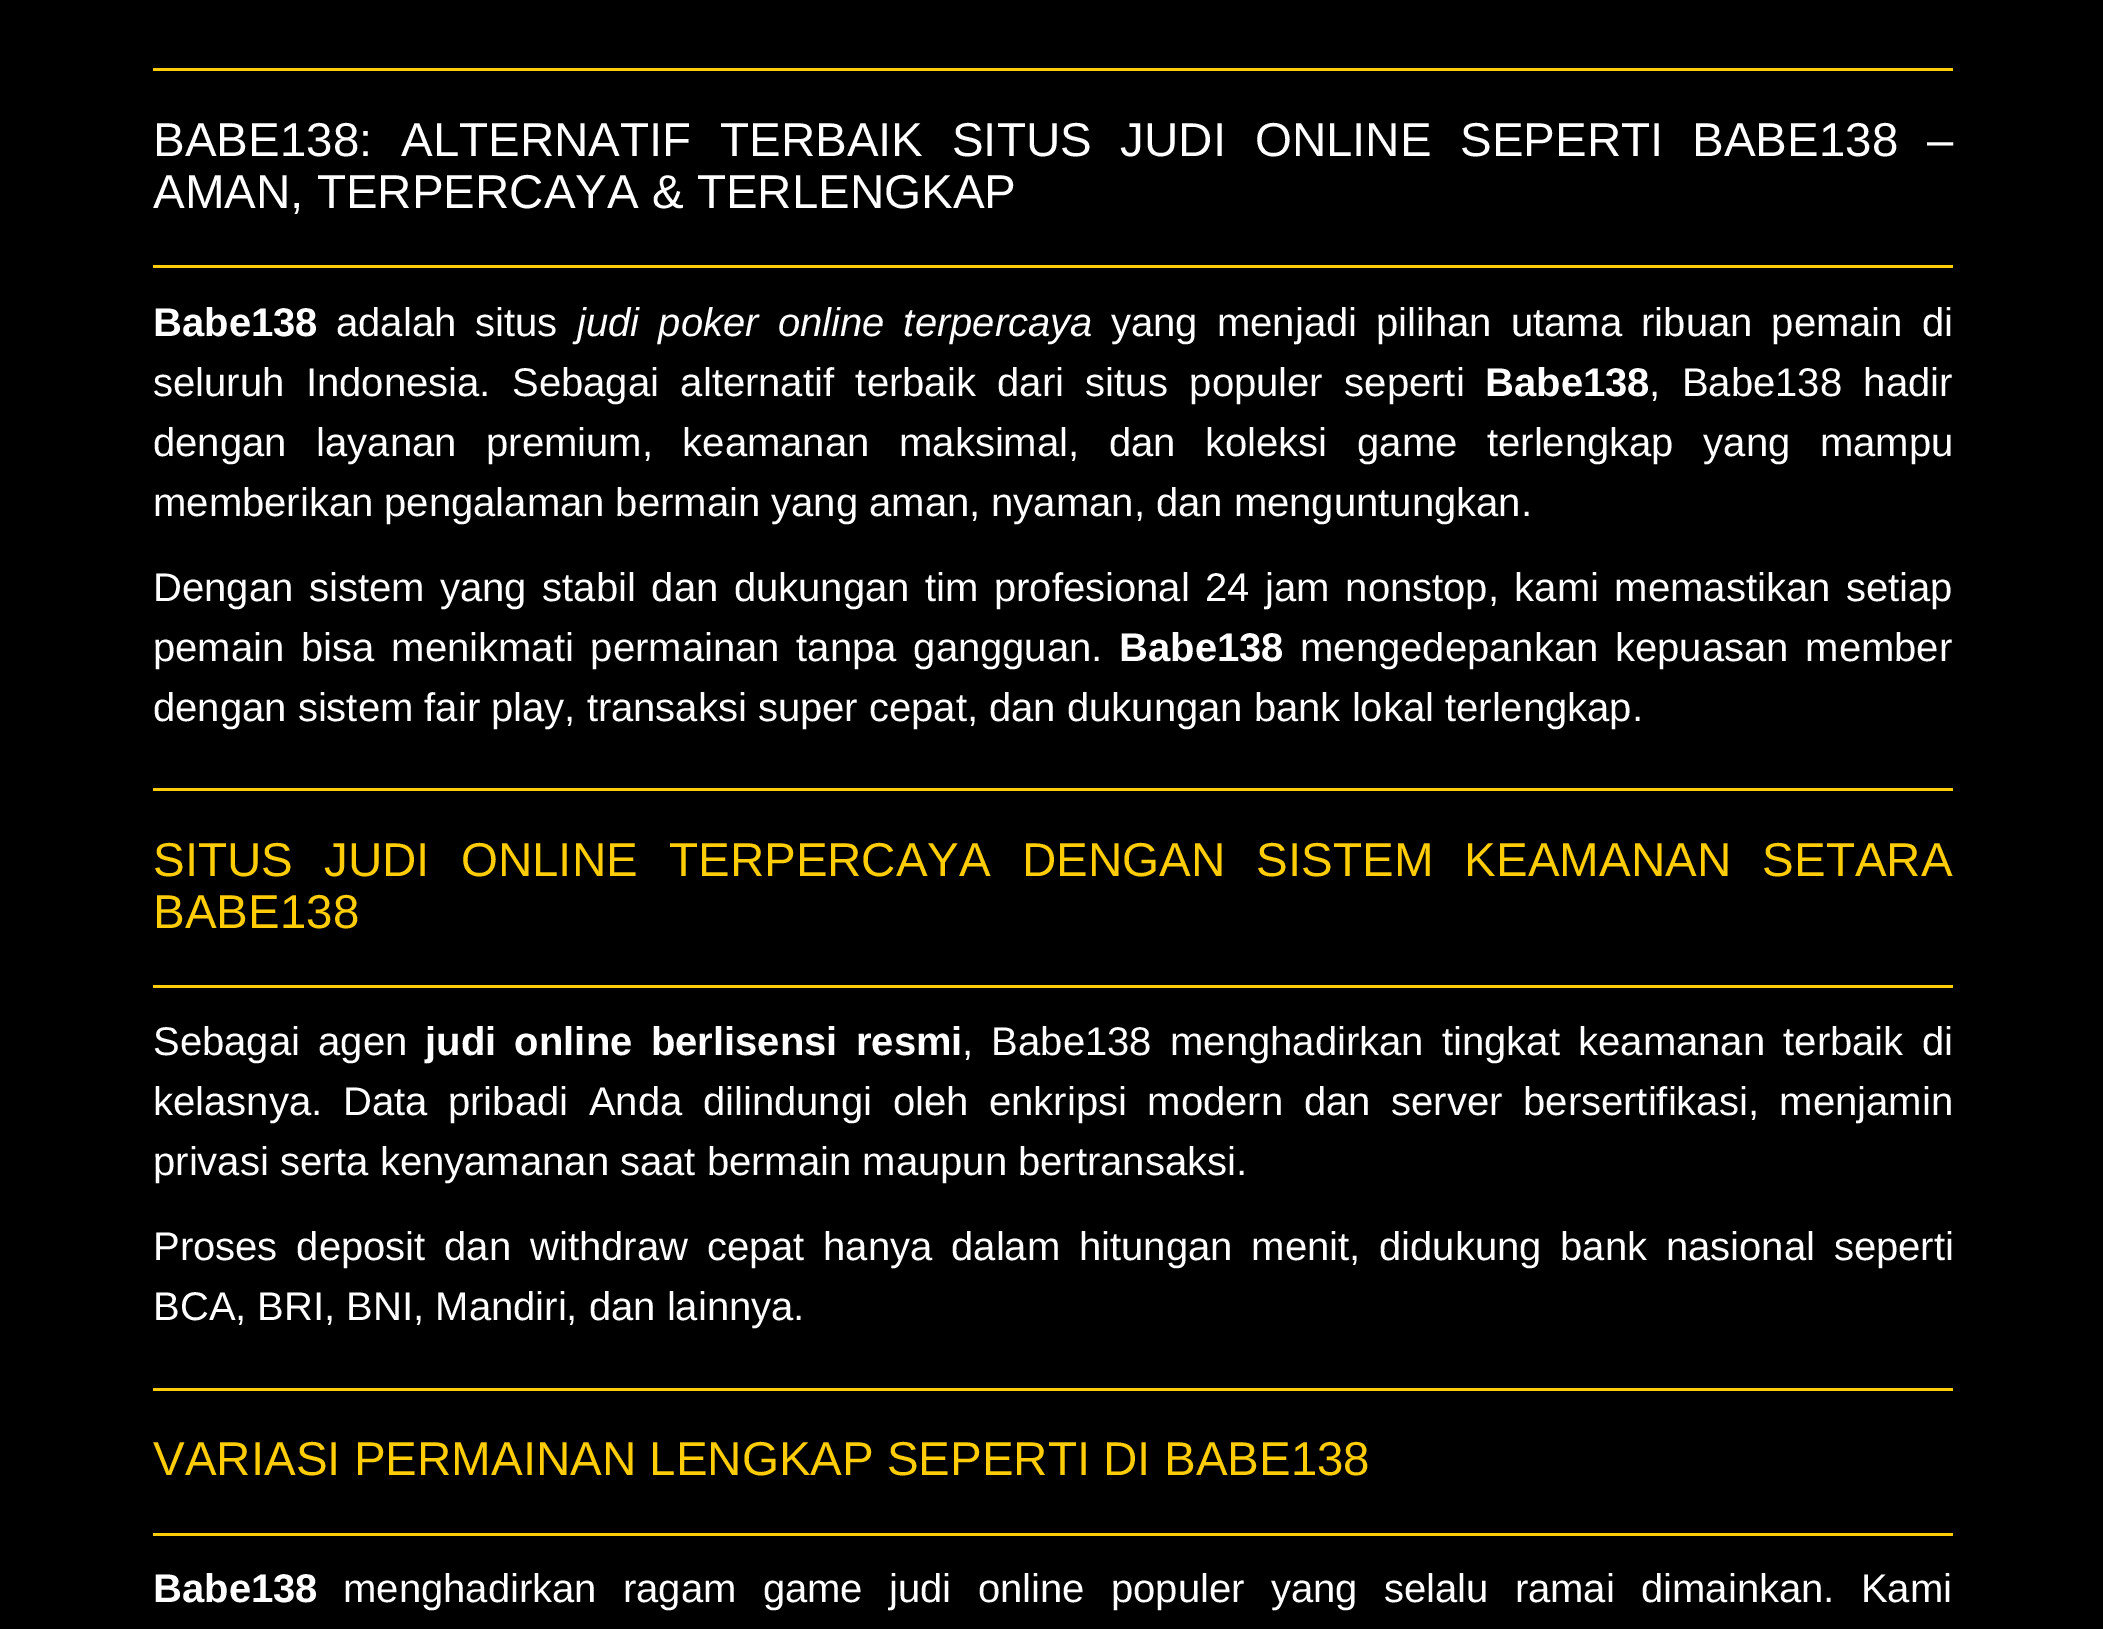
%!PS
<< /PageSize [2103 1629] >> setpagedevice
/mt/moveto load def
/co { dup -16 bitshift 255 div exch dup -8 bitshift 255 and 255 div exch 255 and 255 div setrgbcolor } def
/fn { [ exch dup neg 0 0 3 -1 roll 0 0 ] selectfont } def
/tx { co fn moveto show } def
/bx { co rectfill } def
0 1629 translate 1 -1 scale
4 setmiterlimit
0 0 2103 1629 16#000000 bx
153 68 1800 3 16#FECD07 bx
153 265 1800 3 16#FECD07 bx
153 788 1800 3 16#FECD07 bx
153 985 1800 3 16#FECD07 bx
153 1388 1800 3 16#FECD07 bx
153 1533 1800 3 16#FECD07 bx
/LiberationSans-Regular 47.5 fn
16#FFFFFF co
153 156 mt 15.5 0 32 (BABE138: ALTERNATIF TERBAIK SITUS JUDI ONLINE SEPERTI BABE138 –) widthshow
(AMAN, TERPERCAYA & TERLENGKAP) 153 208 /LiberationSans-Regular 47.5 16#FFFFFF tx
(Babe138) 153 336 /LiberationSans-Bold 40 16#FFFFFF tx
/LiberationSans-Regular 40 fn
336 336 mt 8 0 32 (adalah situs) widthshow
/LiberationSans-Italic 40 fn
577 336 mt 8 0 32 (judi poker online terpercaya) widthshow
/LiberationSans-Regular 40 fn
1111 336 mt 8 0 32 (yang menjadi pilihan utama ribuan pemain di) widthshow
153 396 mt 10.5 0 32 (seluruh Indonesia. Sebagai alternatif terbaik dari situs populer seperti) widthshow
(Babe138) 1485 396 /LiberationSans-Bold 40 16#FFFFFF tx
/LiberationSans-Regular 40 fn
1649 396 mt 10.5 0 32 (, Babe138 hadir) widthshow
153 456 mt 18.6 0 32 (dengan layanan premium, keamanan maksimal, dan koleksi game terlengkap yang mampu) widthshow
(memberikan pengalaman bermain yang aman, nyaman, dan menguntungkan.) 153 516 /LiberationSans-Regular 40 16#FFFFFF tx
153 601 mt 4.5 0 32 (Dengan sistem yang stabil dan dukungan tim profesional 24 jam nonstop, kami memastikan setiap) widthshow
153 661 mt 5.75 0 32 (pemain bisa menikmati permainan tanpa gangguan.) widthshow
(Babe138) 1119 661 /LiberationSans-Bold 40 16#FFFFFF tx
/LiberationSans-Regular 40 fn
1300 661 mt 5.75 0 32 (mengedepankan kepuasan member) widthshow
(dengan sistem fair play, transaksi super cepat, dan dukungan bank lokal terlengkap.) 153 721 /LiberationSans-Regular 40 16#FFFFFF tx
/LiberationSans-Regular 47.5 fn
16#FECD07 co
153 876 mt 18 0 32 (SITUS JUDI ONLINE TERPERCAYA DENGAN SISTEM KEAMANAN SETARA) widthshow
(BABE138) 153 928 /LiberationSans-Regular 47.5 16#FECD07 tx
/LiberationSans-Regular 40 fn
16#FFFFFF co
153 1055 mt 7.25 0 32 (Sebagai agen) widthshow
/LiberationSans-Bold 40 fn
425 1055 mt 7.25 0 32 (judi online berlisensi resmi) widthshow
/LiberationSans-Regular 40 fn
962 1055 mt 7.25 0 32 (, Babe138 menghadirkan tingkat keamanan terbaik di) widthshow
153 1115 mt 9.6 0 32 (kelasnya. Data pribadi Anda dilindungi oleh enkripsi modern dan server bersertifikasi, menjamin) widthshow
(privasi serta kenyamanan saat bermain maupun bertransaksi.) 153 1175 /LiberationSans-Regular 40 16#FFFFFF tx
153 1260 mt 7.75 0 32 (Proses deposit dan withdraw cepat hanya dalam hitungan menit, didukung bank nasional seperti) widthshow
(BCA, BRI, BNI, Mandiri, dan lainnya.) 153 1320 /LiberationSans-Regular 40 16#FFFFFF tx
(VARIASI PERMAINAN LENGKAP SEPERTI DI BABE138) 153 1475 /LiberationSans-Regular 47.5 16#FECD07 tx
(Babe138) 153 1602 /LiberationSans-Bold 40 16#FFFFFF tx
/LiberationSans-Regular 40 fn
343 1602 mt 15.25 0 32 (menghadirkan ragam game judi online populer yang selalu ramai dimainkan. Kami) widthshow
showpage
